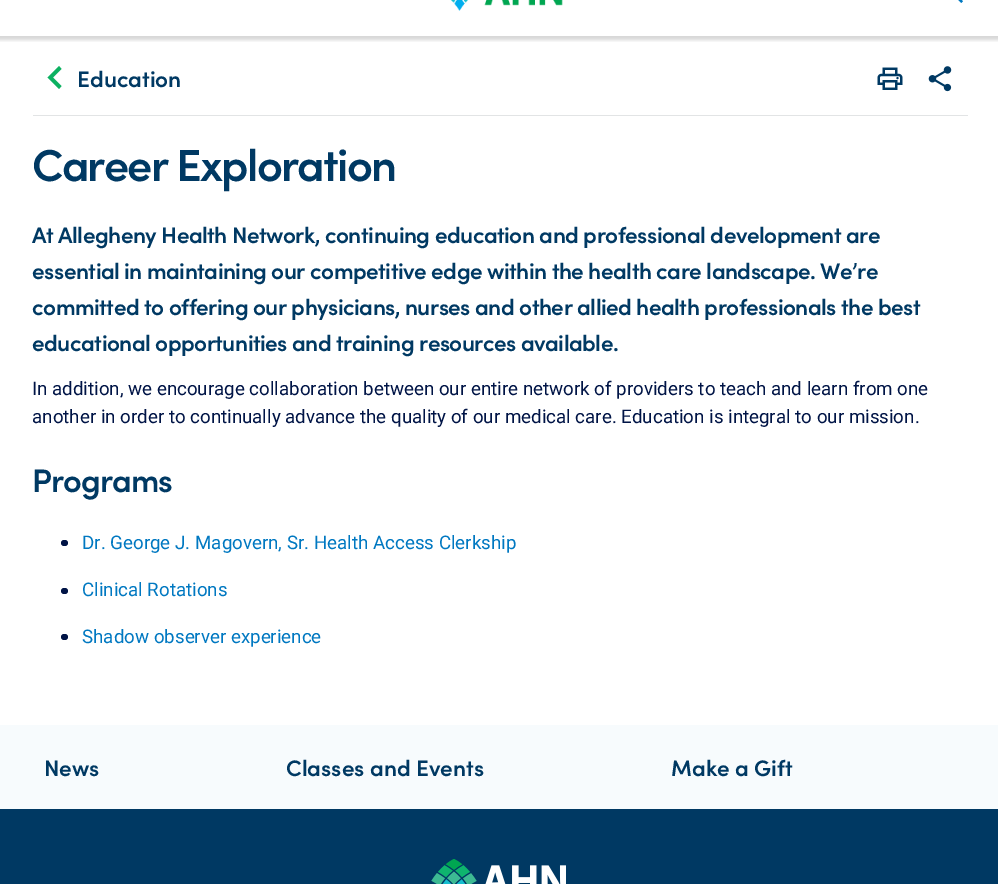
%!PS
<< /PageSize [998 884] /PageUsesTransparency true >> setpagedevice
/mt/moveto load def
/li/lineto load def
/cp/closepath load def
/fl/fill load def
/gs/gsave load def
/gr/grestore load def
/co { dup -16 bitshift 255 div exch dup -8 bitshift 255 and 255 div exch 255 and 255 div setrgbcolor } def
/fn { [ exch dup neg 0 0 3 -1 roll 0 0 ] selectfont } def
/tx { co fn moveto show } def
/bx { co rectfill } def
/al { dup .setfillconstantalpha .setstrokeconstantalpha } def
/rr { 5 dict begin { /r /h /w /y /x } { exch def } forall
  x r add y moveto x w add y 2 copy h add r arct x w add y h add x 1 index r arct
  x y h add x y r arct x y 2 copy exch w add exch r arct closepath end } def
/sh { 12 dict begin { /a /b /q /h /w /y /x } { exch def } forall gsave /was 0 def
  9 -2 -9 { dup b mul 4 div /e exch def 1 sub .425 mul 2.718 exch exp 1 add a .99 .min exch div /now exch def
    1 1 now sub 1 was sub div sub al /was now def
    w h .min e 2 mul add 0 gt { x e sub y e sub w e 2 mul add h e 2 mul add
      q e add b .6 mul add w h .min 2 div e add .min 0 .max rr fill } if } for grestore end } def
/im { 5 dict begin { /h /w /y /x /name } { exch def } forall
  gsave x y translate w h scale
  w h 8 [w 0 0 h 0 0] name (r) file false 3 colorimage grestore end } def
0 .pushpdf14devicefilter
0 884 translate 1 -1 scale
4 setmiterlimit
0 0 998 884 16#FFFFFF bx
gs
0 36 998 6 rectclip
16#000000 co
-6 -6 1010 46 0 2 .16 sh
gr
(media/1.raw) 451 0 112 11 im
(media/2.raw) 958 0 5 3 im
33 115 935 1 16#E2E4E5 bx
16#0CB161 co
61.5 86 mt 59 89 li 47.5 77.5 li 59 66 li 61.5 69 li 53 77.5 li cp fl
(media/3.raw) 877 67 26 23 im
(media/4.raw) 928 66 24 26 im
16#001446 co
61 540 7 6 3 rr fl
61 588 7 6 3 rr fl
61 634 7 6 3 rr fl
0 725 998 84 16#F7FBFD bx
0 809 998 75 16#003963 bx
(media/5.raw) 431 859 135 25 im
(Education) 77 87 /Sofia-SemiBold 22.5 16#003963 tx
/Sofia-SemiBold 45 fn
32 181 mt -1.75 0 (Career Exploration) ashow
/Sofia-SemiBold 22.5 fn
32 243 mt -.5 0 (At Allegheny Health Network, continuing education and professional development are) ashow
32 279 mt -.5 0 (essential in maintaining our competitive edge within the health care landscape. We’re) ashow
32 315 mt -.5 0 (committed to offering our physicians, nurses and other allied health professionals the best) ashow
32 351 mt -.5 0 (educational opportunities and training resources available.) ashow
(In addition, we encourage collaboration between our entire network of providers to teach and learn from one) 32 395 /Roboto-Regular 18.75 16#001446 tx
(another in order to continually advance the quality of our medical care. Education is integral to our mission.) 32 423 /Roboto-Regular 18.75 16#001446 tx
/Sofia-SemiBold 32.5 fn
16#003963 co
32 492 mt -1 0 (Programs) ashow
(Dr. George J. Magovern, Sr. Health Access Clerkship) 82 549 /Roboto-Regular 18.75 16#0078C1 tx
(Clinical Rotations) 82 596 /Roboto-Regular 18.75 16#0078C1 tx
(Shadow observer experience) 82 643 /Roboto-Regular 18.75 16#0078C1 tx
(News) 44 776 /Sofia-SemiBold 22.5 16#003963 tx
(Classes and Events) 286 776 /Sofia-SemiBold 22.5 16#003963 tx
(Make a Gift) 671 776 /Sofia-SemiBold 22.5 16#003963 tx
.poppdf14devicefilter showpage
